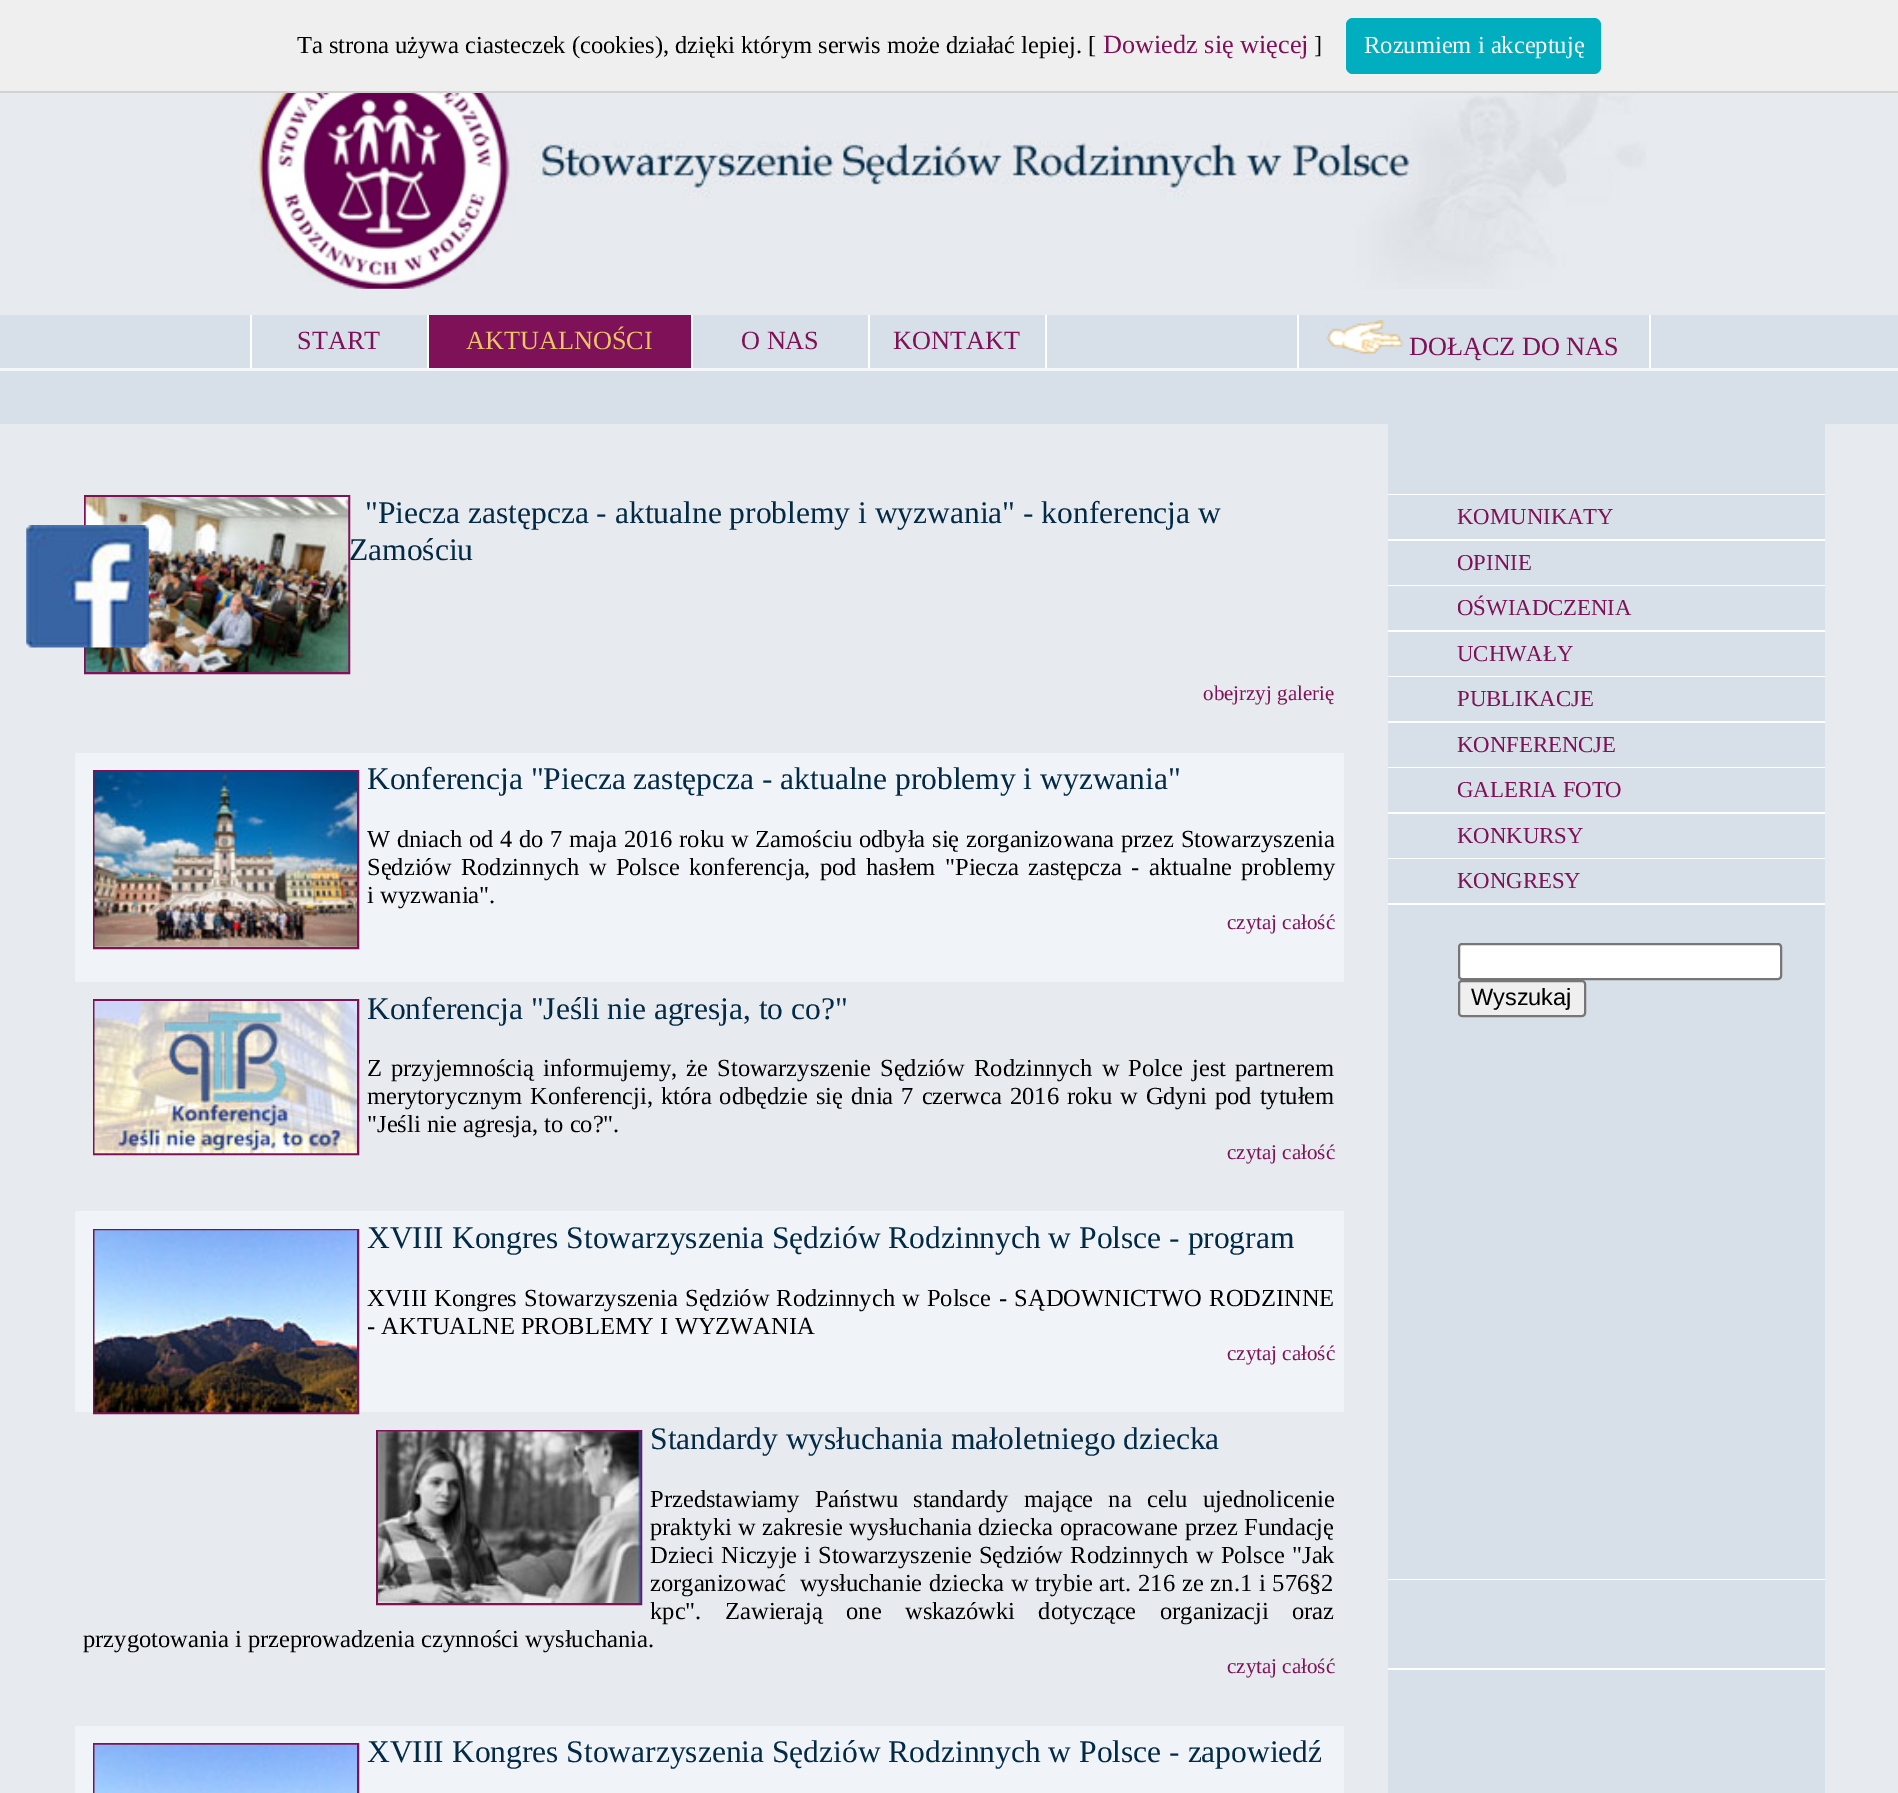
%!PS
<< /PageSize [1898 1793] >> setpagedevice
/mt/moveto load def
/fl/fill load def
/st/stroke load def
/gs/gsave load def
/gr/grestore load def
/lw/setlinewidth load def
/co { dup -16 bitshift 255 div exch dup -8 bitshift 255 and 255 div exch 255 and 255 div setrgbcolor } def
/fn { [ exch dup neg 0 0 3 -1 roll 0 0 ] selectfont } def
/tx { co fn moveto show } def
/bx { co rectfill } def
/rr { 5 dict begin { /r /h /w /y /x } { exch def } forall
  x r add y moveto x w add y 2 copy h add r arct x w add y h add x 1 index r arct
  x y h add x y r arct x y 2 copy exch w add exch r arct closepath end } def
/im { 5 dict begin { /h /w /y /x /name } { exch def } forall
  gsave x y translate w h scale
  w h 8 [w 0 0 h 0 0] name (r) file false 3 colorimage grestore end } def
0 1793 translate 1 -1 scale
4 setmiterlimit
0 0 1898 1793 16#F3F7F9 bx
0 0 1898 91 16#EFEFEF bx
0 91 1898 2 16#D3D0D0 bx
16#00AFBF co
1346 18 255 56 7 rr fl
0 93 1898 222 16#E7EAEE bx
(media/1.raw) 250 93 1396 196 im
0 315 1898 53 16#D7DFE8 bx
250 315 2 53 16#FFFFFF bx
427 315 2 53 16#FFFFFF bx
429 315 262 53 16#7E1157 bx
691 315 2 53 16#FFFFFF bx
868 315 2 53 16#FFFFFF bx
1045 315 2 53 16#FFFFFF bx
1297 315 2 53 16#FFFFFF bx
(media/2.raw) 1326 320 78 34 im
1649 315 2 53 16#FFFFFF bx
0 371 1898 53 16#D7DFE8 bx
0 424 1898 1369 16#E7EAEE bx
16#7E1157 co
2 lw
85 496 264 177 rectstroke
(media/3.raw) 85 497 264 175 im
75 753 1269 229 16#F0F3F7 bx
16#7E1157 co
94 771 264 177 rectstroke
(media/4.raw) 94 771 263 176 im
94 1000 264 154 rectstroke
(media/5.raw) 94 1001 263 153 im
75 1211 1269 201 16#F0F3F7 bx
16#7E1157 co
94 1230 264 183 rectstroke
(media/6.raw) 94 1230 263 183 im
377 1431 264 173 rectstroke
(media/7.raw) 378 1431 263 172 im
75 1726 1269 67 16#F0F3F7 bx
16#7E1157 co
94 1744 264 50 rectstroke
(media/8.raw) 94 1744 263 49 im
1388 424 437 70 16#D7DFE8 bx
1388 494 437 1 16#FFFFFF bx
1388 495 437 44 16#D7DFE8 bx
1388 539 437 2 16#FFFFFF bx
1388 541 437 44 16#D7DFE8 bx
1388 585 437 1 16#FFFFFF bx
1388 586 437 44 16#D7DFE8 bx
1388 630 437 2 16#FFFFFF bx
1388 632 437 44 16#D7DFE8 bx
1388 676 437 1 16#FFFFFF bx
1388 677 437 44 16#D7DFE8 bx
1388 721 437 2 16#FFFFFF bx
1388 723 437 44 16#D7DFE8 bx
1388 767 437 1 16#FFFFFF bx
1388 768 437 44 16#D7DFE8 bx
1388 812 437 2 16#FFFFFF bx
1388 814 437 44 16#D7DFE8 bx
1388 858 437 1 16#FFFFFF bx
1388 859 437 44 16#D7DFE8 bx
1388 903 437 2 16#FFFFFF bx
1388 905 437 674 16#D7DFE8 bx
16#FFFFFF co
1459 944 322 35 3 rr gs fl gr
16#767676 co
st
16#EFEFEF co
1459 981 126 35 3 rr gs fl gr
16#767676 co
st
1388 1579 437 1 16#FFFFFF bx
1388 1580 437 88 16#D7DFE8 bx
1388 1668 437 2 16#FFFFFF bx
1388 1670 437 123 16#D7DFE8 bx
(media/9.raw) 26 525 123 123 im
(Ta strona używa ciasteczek \(cookies\), dzięki którym serwis może działać lepiej. [) 297 53 /LiberationSerif-Regular 24.5 16#000000 tx
(Dowiedz się więcej) 1103 53 /LiberationSerif-Regular 26.25 16#7E1157 tx
(]) 1314 53 /LiberationSerif-Regular 24.5 16#000000 tx
(Rozumiem i akceptuję) 1364 53 /LiberationSerif-Regular 24.5 16#FFFFFF tx
(START) 297 349 /LiberationSerif-Regular 26.25 16#7E1157 tx
(AKTUALNOŚCI) 466 349 /LiberationSerif-Regular 26.25 16#EAC466 tx
(O NAS) 741 349 /LiberationSerif-Regular 26.25 16#7E1157 tx
(KONTAKT) 893 349 /LiberationSerif-Regular 26.25 16#7E1157 tx
(DOŁĄCZ DO NAS) 1409 355 /LiberationSerif-Regular 26.25 16#7E1157 tx
("Piecza zastępcza - aktualne problemy i wyzwania" - konferencja w) 365 523 /LiberationSerif-Regular 31.5 16#022A46 tx
(Zamościu) 349 560 /LiberationSerif-Regular 31.5 16#022A46 tx
(obejrzyj galerię) 1203 700 /LiberationSerif-Regular 21 16#7E1157 tx
(Konferencja "Piecza zastępcza - aktualne problemy i wyzwania") 367 789 /LiberationSerif-Regular 31.5 16#022A46 tx
/LiberationSerif-Regular 24.5 fn
16#000000 co
367 847 mt .6 0 32 (W dniach od 4 do 7 maja 2016 roku w Zamościu odbyła się zorganizowana przez Stowarzyszenia) widthshow
367 875 mt 3.25 0 32 (Sędziów Rodzinnych w Polsce konferencja, pod hasłem "Piecza zastępcza - aktualne problemy) widthshow
(i wyzwania".) 367 903 /LiberationSerif-Regular 24.5 16#000000 tx
(czytaj całość) 1227 929 /LiberationSerif-Regular 21 16#7E1157 tx
(Konferencja "Jeśli nie agresja, to co?") 367 1019 /LiberationSerif-Regular 31.5 16#022A46 tx
/LiberationSerif-Regular 24.5 fn
16#000000 co
367 1076 mt 3 0 32 (Z przyjemnością informujemy, że Stowarzyszenie Sędziów) widthshow
974 1076 mt 3 0 32 (Rodzinnych w Polce jest partnerem) widthshow
(merytorycznym) 367 1104 /LiberationSerif-Regular 24.5 16#000000 tx
530 1104 mt 1.9 0 32 (Konferencji, która odbędzie się dnia 7 czerwca 2016 roku w Gdyni pod tytułem) widthshow
("Jeśli nie agresja, to co?".) 367 1132 /LiberationSerif-Regular 24.5 16#000000 tx
(czytaj całość) 1227 1159 /LiberationSerif-Regular 21 16#7E1157 tx
(XVIII Kongres Stowarzyszenia Sędziów Rodzinnych w Polsce - program) 367 1248 /LiberationSerif-Regular 31.5 16#022A46 tx
/LiberationSerif-Regular 24.5 fn
16#000000 co
367 1306 mt 1 0 32 (XVIII Kongres Stowarzyszenia Sędziów Rodzinnych w Polsce) widthshow
999 1306 mt 1 0 32 (- SĄDOWNICTWO RODZINNE) widthshow
(- AKTUALNE PROBLEMY I WYZWANIA) 367 1334 /LiberationSerif-Regular 24.5 16#000000 tx
(czytaj całość) 1227 1360 /LiberationSerif-Regular 21 16#7E1157 tx
(Standardy wysłuchania małoletniego dziecka) 650 1449 /LiberationSerif-Regular 31.5 16#022A46 tx
/LiberationSerif-Regular 24.5 fn
16#000000 co
650 1507 mt 9 0 32 (Przedstawiamy Państwu) widthshow
(standardy) 913 1507 /LiberationSerif-Regular 24.5 16#000000 tx
1024 1507 mt 9 0 32 (mające na celu ujednolicenie) widthshow
(praktyki) 650 1535 /LiberationSerif-Regular 24.5 16#000000 tx
738 1535 mt .5 0 32 (w zakresie wysłuchania dziecka opracowane przez Fundację) widthshow
650 1563 mt 1 0 32 (Dzieci Niczyje) widthshow
804 1563 mt 1 0 32 (i Stowarzyszenie Sędziów Rodzinnych w Polsce) widthshow
("Jak) 1292 1563 /LiberationSerif-Regular 24.5 16#000000 tx
650 1591 mt .75 0 32 (zorganizować  wysłuchanie dziecka w trybie art. 216 ze zn.1 i 576§2) widthshow
(kpc".) 650 1619 /LiberationSerif-Regular 24.5 16#000000 tx
725 1619 mt 17 0 32 (Zawierają one) widthshow
905 1619 mt 17 0 32 (wskazówki dotyczące) widthshow
(organizacji) 1160 1619 /LiberationSerif-Regular 24.5 16#000000 tx
(oraz) 1292 1619 /LiberationSerif-Regular 24.5 16#000000 tx
(przygotowania i przeprowadzenia czynności wysłuchania.) 83 1647 /LiberationSerif-Regular 24.5 16#000000 tx
(czytaj całość) 1227 1673 /LiberationSerif-Regular 21 16#7E1157 tx
(XVIII Kongres Stowarzyszenia Sędziów Rodzinnych w Polsce - zapowiedź) 367 1762 /LiberationSerif-Regular 31.5 16#022A46 tx
(KOMUNIKATY) 1457 524 /LiberationSerif-Regular 22.75 16#7E1157 tx
(OPINIE) 1457 570 /LiberationSerif-Regular 22.75 16#7E1157 tx
(OŚWIADCZENIA) 1457 615 /LiberationSerif-Regular 22.75 16#7E1157 tx
(UCHWAŁY) 1457 661 /LiberationSerif-Regular 22.75 16#7E1157 tx
(PUBLIKACJE) 1457 706 /LiberationSerif-Regular 22.75 16#7E1157 tx
(KONFERENCJE) 1457 752 /LiberationSerif-Regular 22.75 16#7E1157 tx
(GALERIA FOTO) 1457 797 /LiberationSerif-Regular 22.75 16#7E1157 tx
(KONKURSY) 1457 843 /LiberationSerif-Regular 22.75 16#7E1157 tx
(KONGRESY) 1457 888 /LiberationSerif-Regular 22.75 16#7E1157 tx
(Wyszukaj) 1471 1005 /LiberationSans-Regular 23.5 16#000000 tx
showpage
